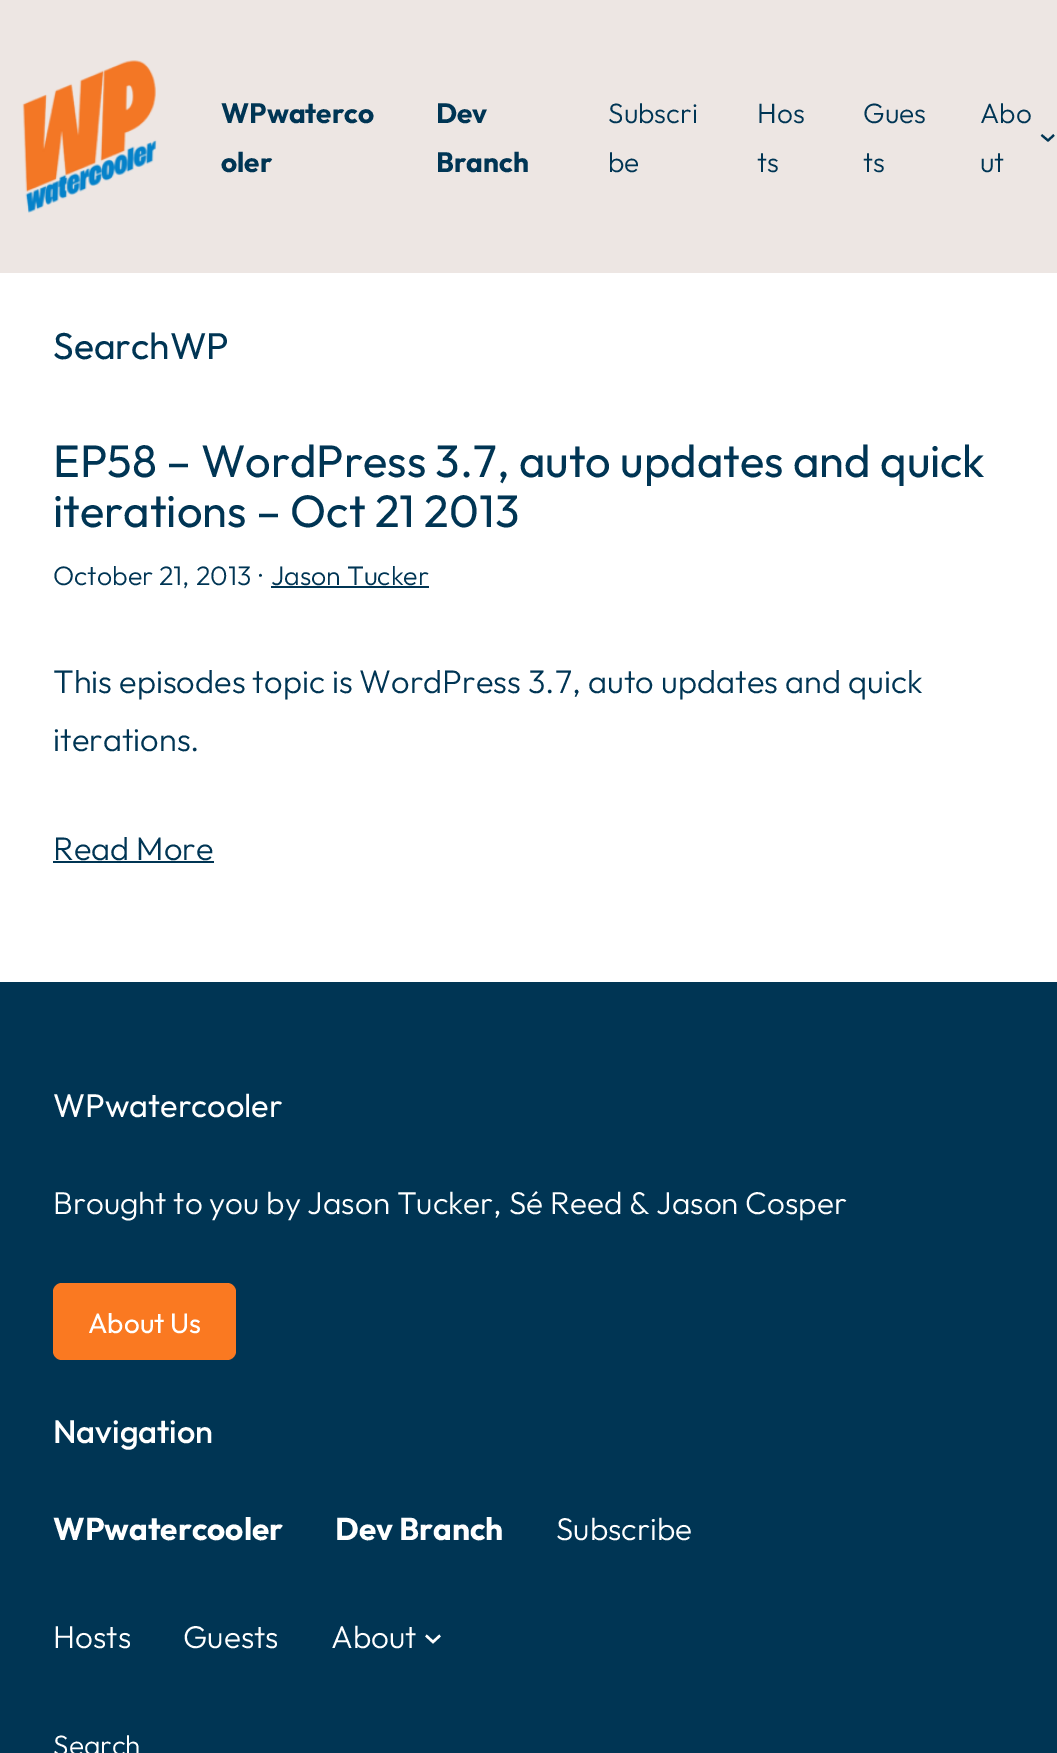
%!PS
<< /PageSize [1057 1753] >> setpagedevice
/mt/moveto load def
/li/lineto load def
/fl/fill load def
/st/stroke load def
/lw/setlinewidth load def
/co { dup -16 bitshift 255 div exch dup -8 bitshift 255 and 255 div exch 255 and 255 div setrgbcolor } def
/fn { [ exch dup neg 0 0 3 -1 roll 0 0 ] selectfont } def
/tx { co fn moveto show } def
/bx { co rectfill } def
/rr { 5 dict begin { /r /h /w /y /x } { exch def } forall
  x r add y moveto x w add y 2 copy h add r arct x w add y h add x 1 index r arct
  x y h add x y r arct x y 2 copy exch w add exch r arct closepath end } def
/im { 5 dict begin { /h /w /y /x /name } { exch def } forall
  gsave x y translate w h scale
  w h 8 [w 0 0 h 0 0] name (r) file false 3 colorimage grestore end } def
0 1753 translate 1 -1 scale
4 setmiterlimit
0 0 1057 1753 16#FFFFFF bx
0 0 1057 273 16#EDE6E3 bx
(media/1.raw) 22 60 135 153 im
16#003554 co
2.1 lw
1041.5 135 mt 1048 140.5 li 1054 135 li st
271 586 158 2 16#003554 bx
53 861 161 2 16#003554 bx
0 982 1057 771 16#003554 bx
16#FA7921 co
53 1283 183 77 9 rr fl
16#FFFFFF co
2.4 lw
426 1635.5 mt 433 1642 li 440 1635.5 li st
(WPwaterco) 221 123 /Outfit-Bold 28 16#003554 tx
(oler) 221 172 /Outfit-Bold 28 16#003554 tx
(Dev) 436 123 /Outfit-Bold 28 16#003554 tx
(Branch) 436 172 /Outfit-Bold 28 16#003554 tx
(Subscri) 608 123 /Outfit-Light 28 16#003554 tx
(be) 608 172 /Outfit-Light 28 16#003554 tx
(Hos) 757 123 /Outfit-Light 28 16#003554 tx
(ts) 757 172 /Outfit-Light 28 16#003554 tx
(Gues) 863 123 /Outfit-Light 28 16#003554 tx
(ts) 863 172 /Outfit-Light 28 16#003554 tx
(Abo) 980 123 /Outfit-Light 28 16#003554 tx
(ut) 980 172 /Outfit-Light 28 16#003554 tx
(SearchWP) 53 359 /Outfit-Regular 37.25 16#003554 tx
(EP58 – WordPress 3.7, auto updates and quick) 53 477 /Outfit-Regular 45.4 16#003554 tx
(iterations – Oct 21 2013) 53 527 /Outfit-Regular 45.4 16#003554 tx
(October 21, 2013) 53 585 /Outfit-Light 26.75 16#003554 tx
(·) 259 585 /Outfit-Light 26.75 16#003554 tx
(Jason Tucker) 271 585 /Outfit-Light 26.75 16#003554 tx
(This episodes topic is WordPress 3.7, auto updates and quick) 53 693 /Outfit-Light 32.6 16#003554 tx
(iterations.) 53 751 /Outfit-Light 32.6 16#003554 tx
(Read More) 53 860 /Outfit-Light 32.6 16#003554 tx
(WPwatercooler) 53 1117 /Outfit-Regular 32.6 16#FFFFFF tx
(Brought to you by Jason Tucker, Sé Reed & Jason Cosper) 53 1214 /Outfit-Light 31.5 16#FFFFFF tx
(About Us) 88 1333 /Outfit-Regular 28 16#FFFFFF tx
(Navigation) 53 1443 /Outfit-Medium 32.6 16#FFFFFF tx
(WPwatercooler) 53 1540 /Outfit-Bold 31.5 16#FFFFFF tx
(Dev Branch) 335 1540 /Outfit-Bold 31.5 16#FFFFFF tx
(Subscribe) 556 1540 /Outfit-Light 31.5 16#FFFFFF tx
(Hosts) 53 1648 /Outfit-Light 31.5 16#FFFFFF tx
(Guests) 183 1648 /Outfit-Light 31.5 16#FFFFFF tx
(About) 331 1648 /Outfit-Light 31.5 16#FFFFFF tx
(Search) 53 1755 /Outfit-Light 28 16#FFFFFF tx
showpage
